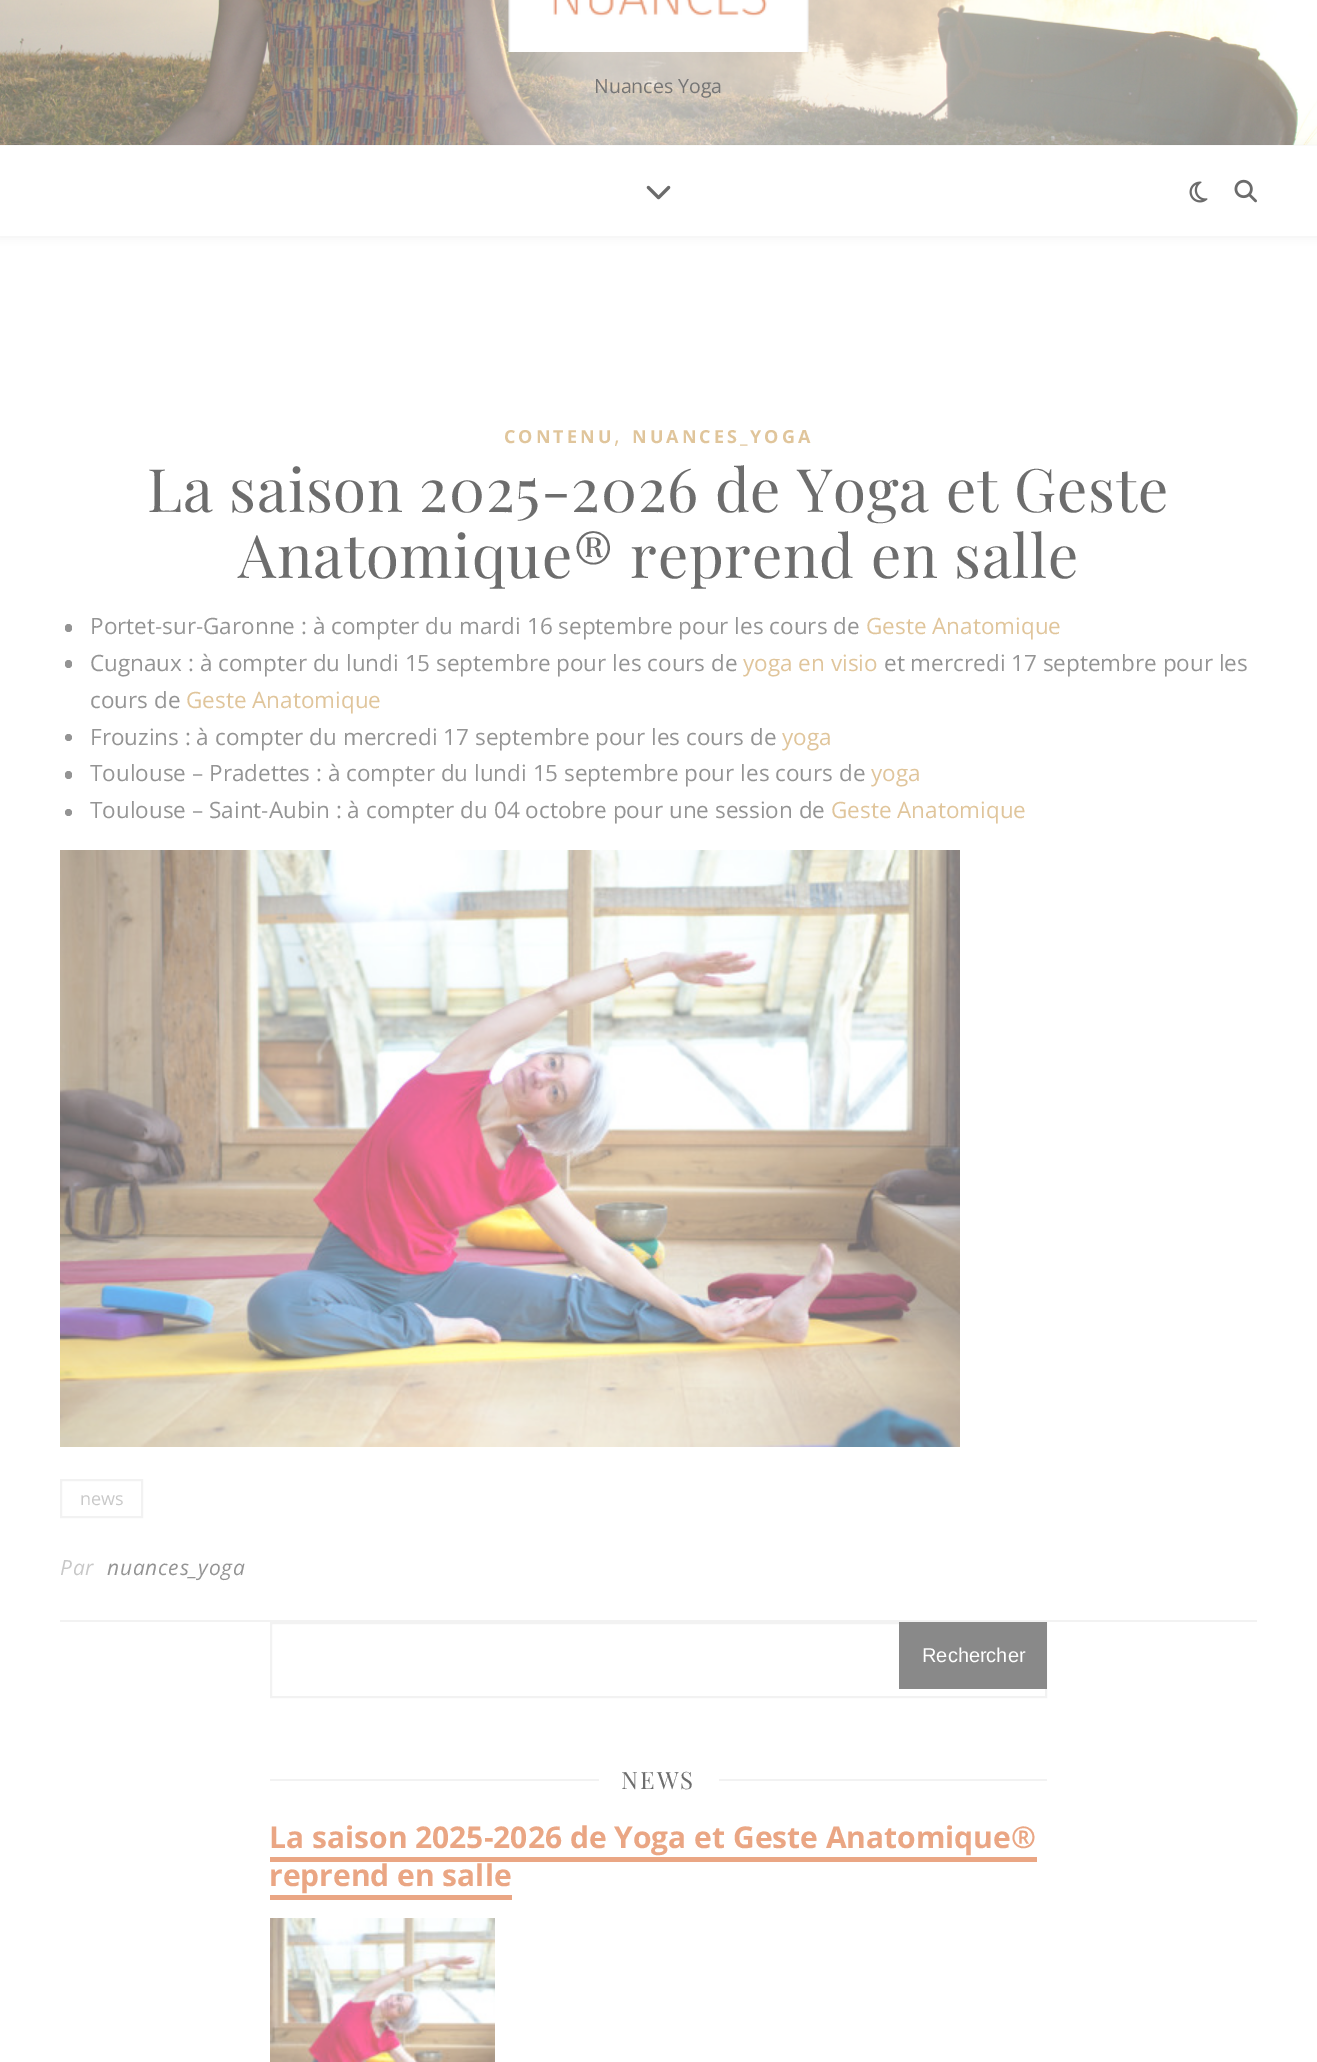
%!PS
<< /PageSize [1317 2062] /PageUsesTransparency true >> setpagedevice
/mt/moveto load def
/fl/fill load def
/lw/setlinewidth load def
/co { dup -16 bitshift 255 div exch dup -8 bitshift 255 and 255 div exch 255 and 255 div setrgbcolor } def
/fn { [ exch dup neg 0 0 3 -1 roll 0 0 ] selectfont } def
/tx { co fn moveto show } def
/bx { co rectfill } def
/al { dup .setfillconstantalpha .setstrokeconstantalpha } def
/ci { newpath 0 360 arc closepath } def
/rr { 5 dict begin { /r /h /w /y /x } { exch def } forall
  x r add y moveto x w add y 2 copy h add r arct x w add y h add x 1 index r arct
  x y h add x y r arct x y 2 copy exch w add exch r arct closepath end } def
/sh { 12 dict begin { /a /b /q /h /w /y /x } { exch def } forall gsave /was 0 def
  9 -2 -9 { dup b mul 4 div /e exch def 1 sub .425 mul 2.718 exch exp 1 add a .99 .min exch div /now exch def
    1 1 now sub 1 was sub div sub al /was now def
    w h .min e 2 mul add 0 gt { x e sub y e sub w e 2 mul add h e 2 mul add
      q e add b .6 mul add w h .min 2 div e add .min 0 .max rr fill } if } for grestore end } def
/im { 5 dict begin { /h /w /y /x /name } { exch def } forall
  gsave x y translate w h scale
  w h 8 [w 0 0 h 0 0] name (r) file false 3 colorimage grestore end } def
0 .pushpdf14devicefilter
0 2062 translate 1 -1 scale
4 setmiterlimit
0 0 1317 2062 16#FFFFFF bx
(media/1.raw) 0 0 1317 145 im
(media/2.raw) 508 0 301 52 im
16#6B6B6B co
0 147 1317 90 0 4 .1 sh
0 146 1317 90 16#FFFFFF bx
(media/3.raw) 646 185 25 15 im
(media/4.raw) 1189 181 19 22 im
(media/5.raw) 1234 179 23 24 im
16#949494 co
65 624 7 8 3.5 rr fl
65 660 7 8 3.5 rr fl
68.5 737.5 3.5 ci fl
65 771 7 8 3.5 rr fl
68.5 812.5 3.5 ci fl
(media/6.raw) 60 850 900 597 im
60 1620 1197 2 16#F2F2F2 bx
2 lw
61 1480 81 37 rectstroke
271 1623 775 74 rectstroke
899 1622 148 67 16#898989 bx
270 1779 329 2 16#F2F2F2 bx
719 1779 328 2 16#F2F2F2 bx
270 1857 767 5 16#EAA684 bx
270 1895 242 5 16#EAA684 bx
(media/7.raw) 270 1918 225 144 im
(Nuances Yoga) 594 93 /OpenSans-Regular 19.5 16#757575 tx
/OpenSans-Bold 18 fn
16#E0C59B co
504 443 mt 3 0 (CONTENU) ashow
(,) 614 443 /OpenSans-Regular 22.5 16#E0C59B tx
/OpenSans-Bold 18 fn
632 443 mt 3 0 (NUANCES_YOGA) ashow
/PlayfairDisplay-Regular 60 fn
16#6D6D6D co
147 512 mt .75 0 (La saison 2025-2026 de Yoga et Geste) ashow
238 578 mt .75 0 (Anatomique® reprend en salle) ashow
(Portet-sur-Garonne : à compter du mardi 16 septembre pour les cours de) 90 634 /OpenSans-Regular 22.5 16#949494 tx
(Geste Anatomique) 866 634 /OpenSans-Regular 22.5 16#E0C59B tx
(Cugnaux : à compter du lundi 15 septembre pour les cours de) 90 671 /OpenSans-Regular 22.5 16#949494 tx
(yoga en visio) 743 671 /OpenSans-Regular 22.5 16#E0C59B tx
(et mercredi 17 septembre pour les) 884 671 /OpenSans-Regular 22.5 16#949494 tx
(cours de) 90 708 /OpenSans-Regular 22.5 16#949494 tx
(Geste Anatomique) 186 708 /OpenSans-Regular 22.5 16#E0C59B tx
(Frouzins : à compter du mercredi 17 septembre pour les cours de) 90 745 /OpenSans-Regular 22.5 16#949494 tx
(yoga) 782 745 /OpenSans-Regular 22.5 16#E0C59B tx
(Toulouse – Pradettes : à compter du lundi 15 septembre pour les cours de) 90 781 /OpenSans-Regular 22.5 16#949494 tx
(yoga) 871 781 /OpenSans-Regular 22.5 16#E0C59B tx
(Toulouse – Saint-Aubin : à compter du 04 octobre pour une session de) 90 818 /OpenSans-Regular 22.5 16#949494 tx
(Geste Anatomique) 831 818 /OpenSans-Regular 22.5 16#E0C59B tx
(news) 80 1505 /OpenSans-Regular 18 16#C8C8C8 tx
/OpenSans-Italic 21 fn
60 1575 mt .75 0 (Par) ashow
16#949494 co
107 1575 mt .75 0 (nuances_yoga) ashow
(Rechercher) 922 1662 /LiberationSans-Regular 20 16#FFFFFF tx
/PlayfairDisplay-Regular 24 fn
16#6D6D6D co
621 1789 mt 2 0 (NEWS) ashow
(La saison 2025-2026 de Yoga et Geste Anatomique®) 269 1848 /OpenSans-Bold 30 16#EAA684 tx
(reprend en salle) 269 1886 /OpenSans-Bold 30 16#EAA684 tx
.poppdf14devicefilter showpage
